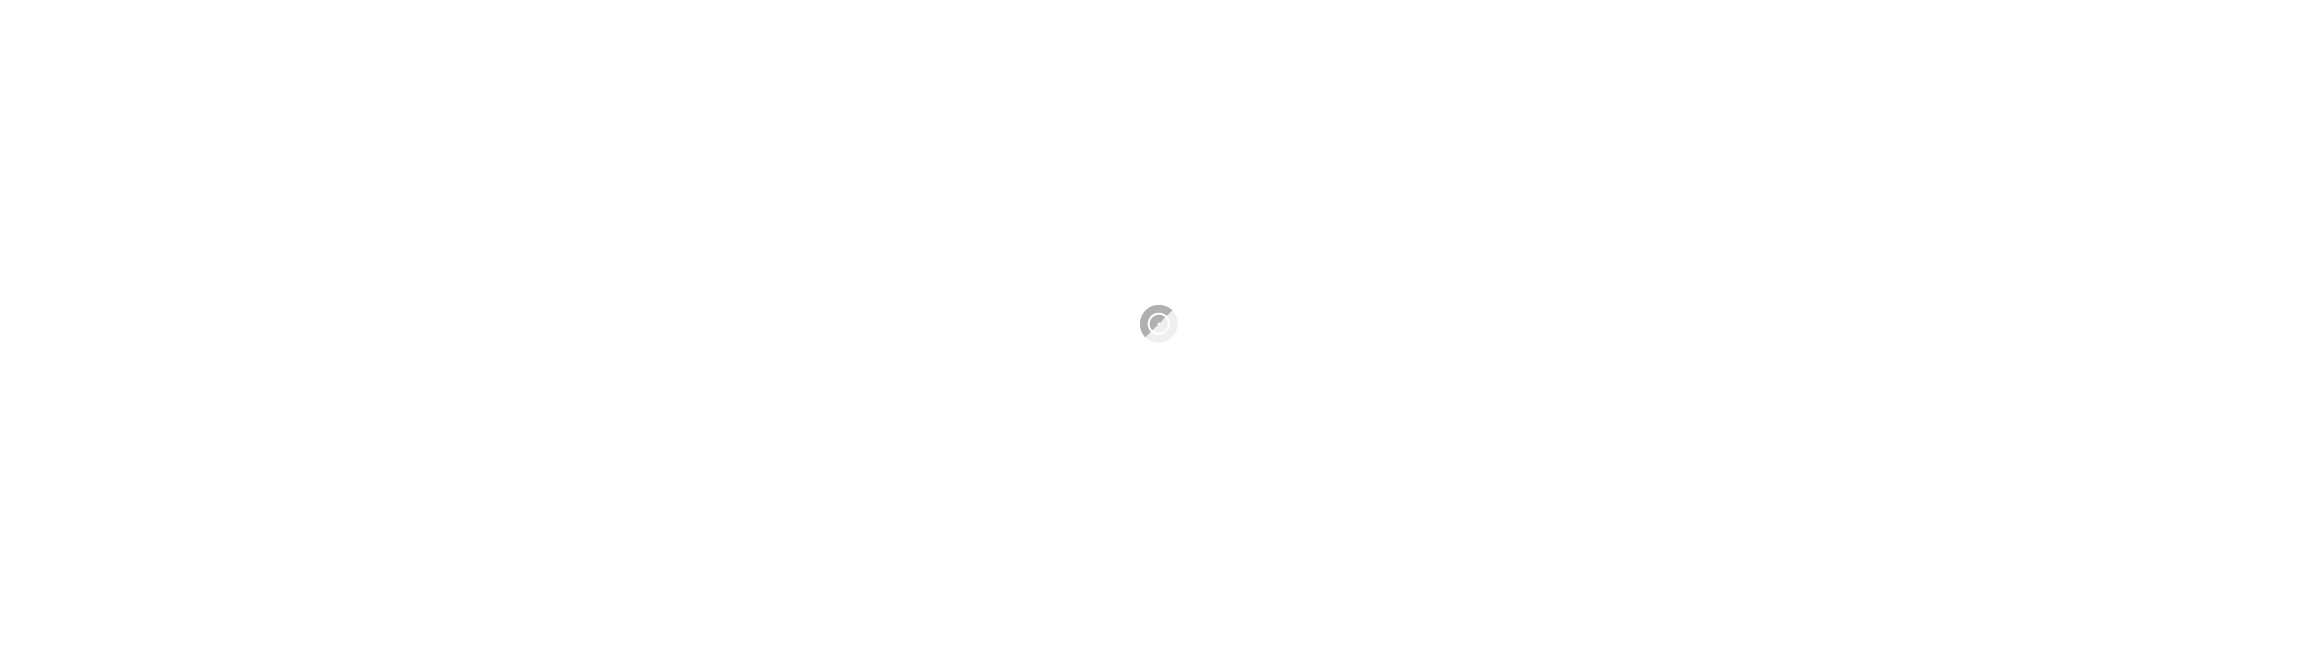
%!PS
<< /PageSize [2317 646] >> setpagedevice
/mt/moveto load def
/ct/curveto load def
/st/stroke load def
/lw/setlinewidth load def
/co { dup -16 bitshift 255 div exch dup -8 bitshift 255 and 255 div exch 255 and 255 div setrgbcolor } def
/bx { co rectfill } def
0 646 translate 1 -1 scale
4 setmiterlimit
0 0 2317 646 16#FFFFFF bx
16#EFEFEF co
7.5 lw
1162.5 320 mt 1167 325 1160 332 1155 327.5 ct st
16#B0B0AF co
1155 327.5 mt 1150.5 322.5 1157.5 315.5 1162.5 320 ct st
16#EFEFEF co
1169.5 313 mt 1180 323.5 1170 341.5 1156 338.5 ct 1153 338 1150 336.5 1148 334.5 ct st
16#B0B0AF co
1148 334.5 mt 1137.5 324 1147.5 306 1161.5 309 ct 1164.5 309.5 1167.5 311 1169.5 313 ct st
showpage
